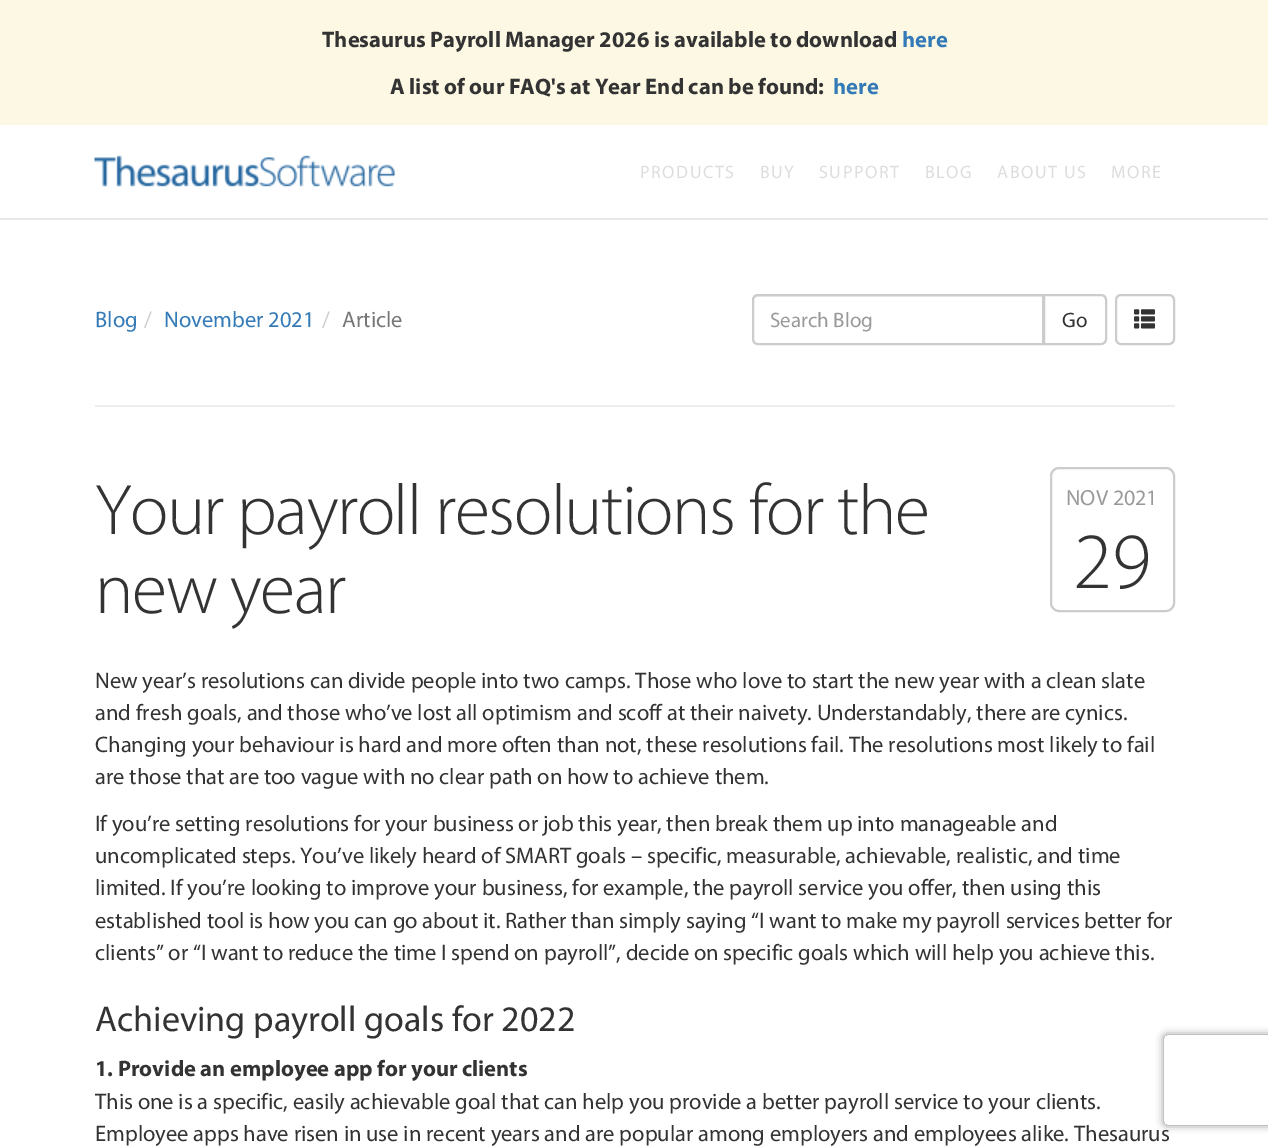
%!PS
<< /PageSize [1268 1146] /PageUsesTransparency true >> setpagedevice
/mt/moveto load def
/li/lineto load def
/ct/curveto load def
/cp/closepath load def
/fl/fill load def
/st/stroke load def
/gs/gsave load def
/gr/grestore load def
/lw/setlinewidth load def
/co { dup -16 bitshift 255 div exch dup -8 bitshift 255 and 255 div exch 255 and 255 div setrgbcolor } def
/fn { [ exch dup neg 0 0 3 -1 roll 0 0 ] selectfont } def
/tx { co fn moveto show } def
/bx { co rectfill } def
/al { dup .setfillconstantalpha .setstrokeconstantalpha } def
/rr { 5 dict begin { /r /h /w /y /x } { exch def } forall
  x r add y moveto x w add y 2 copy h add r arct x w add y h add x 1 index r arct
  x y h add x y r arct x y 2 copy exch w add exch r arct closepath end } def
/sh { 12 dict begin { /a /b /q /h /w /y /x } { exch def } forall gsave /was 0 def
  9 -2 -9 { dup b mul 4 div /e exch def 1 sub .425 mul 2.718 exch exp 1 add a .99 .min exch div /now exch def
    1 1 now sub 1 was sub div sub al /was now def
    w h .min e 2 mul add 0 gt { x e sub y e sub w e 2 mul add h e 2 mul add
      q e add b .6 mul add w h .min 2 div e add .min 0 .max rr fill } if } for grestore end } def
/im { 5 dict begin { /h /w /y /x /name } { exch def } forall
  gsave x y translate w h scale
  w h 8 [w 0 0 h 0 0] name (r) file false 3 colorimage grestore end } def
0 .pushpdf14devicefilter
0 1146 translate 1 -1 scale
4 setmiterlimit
0 0 1268 1146 16#FFFFFF bx
0 0 1268 125 16#FCF8E3 bx
0 218 1268 2 16#E7E7E7 bx
(media/1.raw) 94 155 301 32 im
16#ECECEC co
758 297 mt 1042 297 li 1042 344 li 1043 344 li 1043 296 li 758 296 li 755 296 753 298 753 301 ct 753 302 li 753 299 755 297 758 297 ct cp fl
16#CCCCCC co
2 lw
758 295 mt 1043 295 li 1043 344 li 758 344 li 755 344 753 342 753 339 ct 753 300 li 753 297 755 295 758 295 ct cp st
16#FFFFFF co
1044 295 mt 1101 295 li 1104 295 1106 297 1106 300 ct 1106 339 li 1106 342 1104 344 1101 344 ct 1044 344 li cp gs fl gr
16#CCCCCC co
st
1116 295 58 49 5 rr st
(media/2.raw) 1134 309 21 20 im
95 405 1080 2 16#EEEEEE bx
16#CCCCCC co
1051 468 123 143 8 rr st
gs
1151 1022 mt 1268 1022 li 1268 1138 li 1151 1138 li cp 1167 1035 mt 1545 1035 li 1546.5 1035 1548 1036.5 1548 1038 ct 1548 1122 li 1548 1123.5 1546.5 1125 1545 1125 ct 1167 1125 li 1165.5 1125 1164 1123.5 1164 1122 ct 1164 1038 li 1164 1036.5 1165.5 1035 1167 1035 ct cp eoclip newpath
16#808080 co
1164 1035 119 90 3 4 1 sh
gr
(Thesaurus Payroll Manager 2026 is available to download) 322 47 /Myriad-Bold 22.5 16#333333 tx
(here) 902 47 /Myriad-Bold 22.5 16#337AB7 tx
(A list of our FAQ's at Year End can be found:) 390 94 /Myriad-Bold 22.5 16#333333 tx
(here) 833 94 /Myriad-Bold 22.5 16#337AB7 tx
/Myriad-Regular 18 fn
16#DDDDDD co
640 178 mt 1.5 0 (PRODUCTS) ashow
760 178 mt 1.5 0 (BUY) ashow
819 178 mt 1.5 0 (SUPPORT) ashow
925 178 mt 1.5 0 (BLOG) ashow
997 178 mt 1.5 0 (ABOUT US) ashow
1111 178 mt 1.5 0 (MORE) ashow
(Blog) 95 327 /Myriad-Regular 22.5 16#337AB7 tx
(/) 144 327 /Myriad-Regular 22.5 16#CCCCCC tx
(November 2021) 164 327 /Myriad-Regular 22.5 16#337AB7 tx
(/) 322 327 /Myriad-Regular 22.5 16#CCCCCC tx
(Article) 342 327 /Myriad-Regular 22.5 16#777777 tx
(Search Blog) 770 327 /Myriad-Regular 21 16#999999 tx
(Go) 1062 327 /Myriad-Regular 21 16#333333 tx
/Myriad-Light 72 fn
95 534 mt -1.5 0 (Your payroll resolutions for the) ashow
95 613 mt -1.5 0 (new year) ashow
(New year’s resolutions can divide people into two camps. Those who love to start the new year with a clean slate) 95 688 /Myriad-Regular 22.5 16#333333 tx
(and fresh goals, and those who’ve lost all optimism and scoff at their naivety. Understandably, there are cynics.) 95 720 /Myriad-Regular 22.5 16#333333 tx
(Changing your behaviour is hard and more often than not, these resolutions fail. The resolutions most likely to fail) 95 752 /Myriad-Regular 22.5 16#333333 tx
(are those that are too vague with no clear path on how to achieve them.) 95 784 /Myriad-Regular 22.5 16#333333 tx
(If you’re setting resolutions for your business or job this year, then break them up into manageable and) 95 831 /Myriad-Regular 22.5 16#333333 tx
(uncomplicated steps. You’ve likely heard of SMART goals – specific, measurable, achievable, realistic, and time) 95 863 /Myriad-Regular 22.5 16#333333 tx
(limited. If you’re looking to improve your business, for example, the payroll service you offer, then using this) 95 895 /Myriad-Regular 22.5 16#333333 tx
(established tool is how you can go about it. Rather than simply saying “I want to make my payroll services better for) 95 928 /Myriad-Regular 22.5 16#333333 tx
(clients” or “I want to reduce the time I spend on payroll”, decide on specific goals which will help you achieve this.) 95 960 /Myriad-Regular 22.5 16#333333 tx
(Achieving payroll goals for 2022) 95 1031 /Myriad-Regular 36 16#333333 tx
(1. Provide an employee app for your clients) 95 1076 /Myriad-Bold 22.5 16#333333 tx
(This one is a specific, easily achievable goal that can help you provide a better payroll service to your clients.) 95 1109 /Myriad-Regular 22.5 16#333333 tx
(Employee apps have risen in use in recent years and are popular among employers and employees alike. Thesaurus) 95 1141 /Myriad-Regular 22.5 16#333333 tx
(NOV 2021) 1066 505 /Myriad-Regular 22 16#999999 tx
(29) 1073 588 /Myriad-Light 80 16#333333 tx
.poppdf14devicefilter showpage
